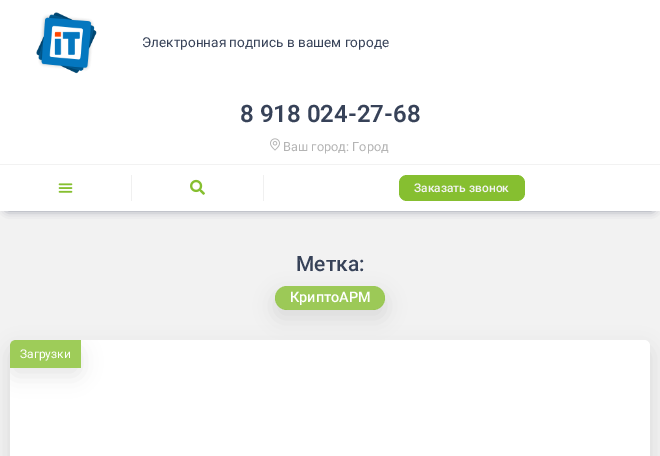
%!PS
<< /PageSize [660 456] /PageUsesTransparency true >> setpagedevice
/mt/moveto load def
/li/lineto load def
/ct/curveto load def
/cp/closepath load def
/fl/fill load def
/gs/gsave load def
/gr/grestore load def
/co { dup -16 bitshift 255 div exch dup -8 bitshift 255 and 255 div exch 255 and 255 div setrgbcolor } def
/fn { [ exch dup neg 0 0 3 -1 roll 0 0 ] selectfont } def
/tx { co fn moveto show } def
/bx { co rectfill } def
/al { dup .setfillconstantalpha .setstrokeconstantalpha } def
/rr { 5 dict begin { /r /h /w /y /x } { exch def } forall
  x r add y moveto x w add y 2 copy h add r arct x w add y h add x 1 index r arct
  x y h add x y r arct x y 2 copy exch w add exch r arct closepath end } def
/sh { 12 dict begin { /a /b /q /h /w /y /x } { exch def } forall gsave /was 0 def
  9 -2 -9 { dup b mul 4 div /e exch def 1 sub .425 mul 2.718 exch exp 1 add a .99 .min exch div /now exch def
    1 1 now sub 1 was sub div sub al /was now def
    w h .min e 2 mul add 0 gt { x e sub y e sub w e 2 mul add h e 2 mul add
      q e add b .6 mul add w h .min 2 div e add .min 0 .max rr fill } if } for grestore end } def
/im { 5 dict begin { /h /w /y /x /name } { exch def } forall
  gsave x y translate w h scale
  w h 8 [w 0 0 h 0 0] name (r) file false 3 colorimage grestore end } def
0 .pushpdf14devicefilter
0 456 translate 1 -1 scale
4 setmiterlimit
0 0 660 456 16#F2F2F2 bx
0 0 660 164 16#FFFFFF bx
(media/1.raw) 36 12 61 62 im
(media/2.raw) 270 138 10 13 im
16#374258 co
8 178 644 30 0 5 1 sh
0 165 660 46 16#FFFFFF bx
131 175 1 26 16#F0F0F0 bx
(media/3.raw) 58 183 15 10 im
263 175 1 26 16#F0F0F0 bx
(media/4.raw) 190 179 15 16 im
16#86BF30 co
399 175 126 26 8 rr fl
gs
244 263 mt 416 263 li 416 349 li 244 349 li cp 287 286 mt 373 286 li 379.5 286 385 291.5 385 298 ct 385 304.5 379.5 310 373 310 ct 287 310 li 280.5 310 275 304.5 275 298 ct 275 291.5 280.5 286 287 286 ct cp eoclip newpath
16#000000 co
275 294 110 24 12 10 .1 sh
gr
0.8 al
275 286 110 24 12 rr fl
1 al
16#000000 co
10 348 640 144 6 10 .1 sh
16#FFFFFF co
10 340 640 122 6 rr fl
gs
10 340 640 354 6 rr clip newpath
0 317 mt 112 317 li 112 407 li 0 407 li cp 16 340 mt 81 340 li 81 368 li 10 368 li 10 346 li 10 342.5 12.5 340 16 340 ct cp eoclip newpath
16#000000 co
10 348 71 28 6 10 .1 sh
gr
0.8 al
16#86BF30 co
16 340 mt 81 340 li 81 368 li 10 368 li 10 346 li 10 342.5 12.5 340 16 340 ct cp fl
1 al
(Электронная подпись в вашем городе) 142 47 /Roboto-Regular 13.6 16#374258 tx
(8 918 024-27-68) 240 122 /Roboto-SemiBold 24 16#374258 tx
(Ваш город: Город) 283 151 /Roboto-Regular 12.75 16#B4B4B4 tx
(Заказать звонок) 414 192 /Roboto-Medium 12 16#F3F3F3 tx
(Метка:) 296 271 /Roboto-Medium 21 16#374258 tx
(КриптоАРМ) 290 302 /Roboto-Medium 14.5 16#FFFFFF tx
(Загрузки) 20 358 /Roboto-Regular 12 16#FFFFFF tx
.poppdf14devicefilter showpage
